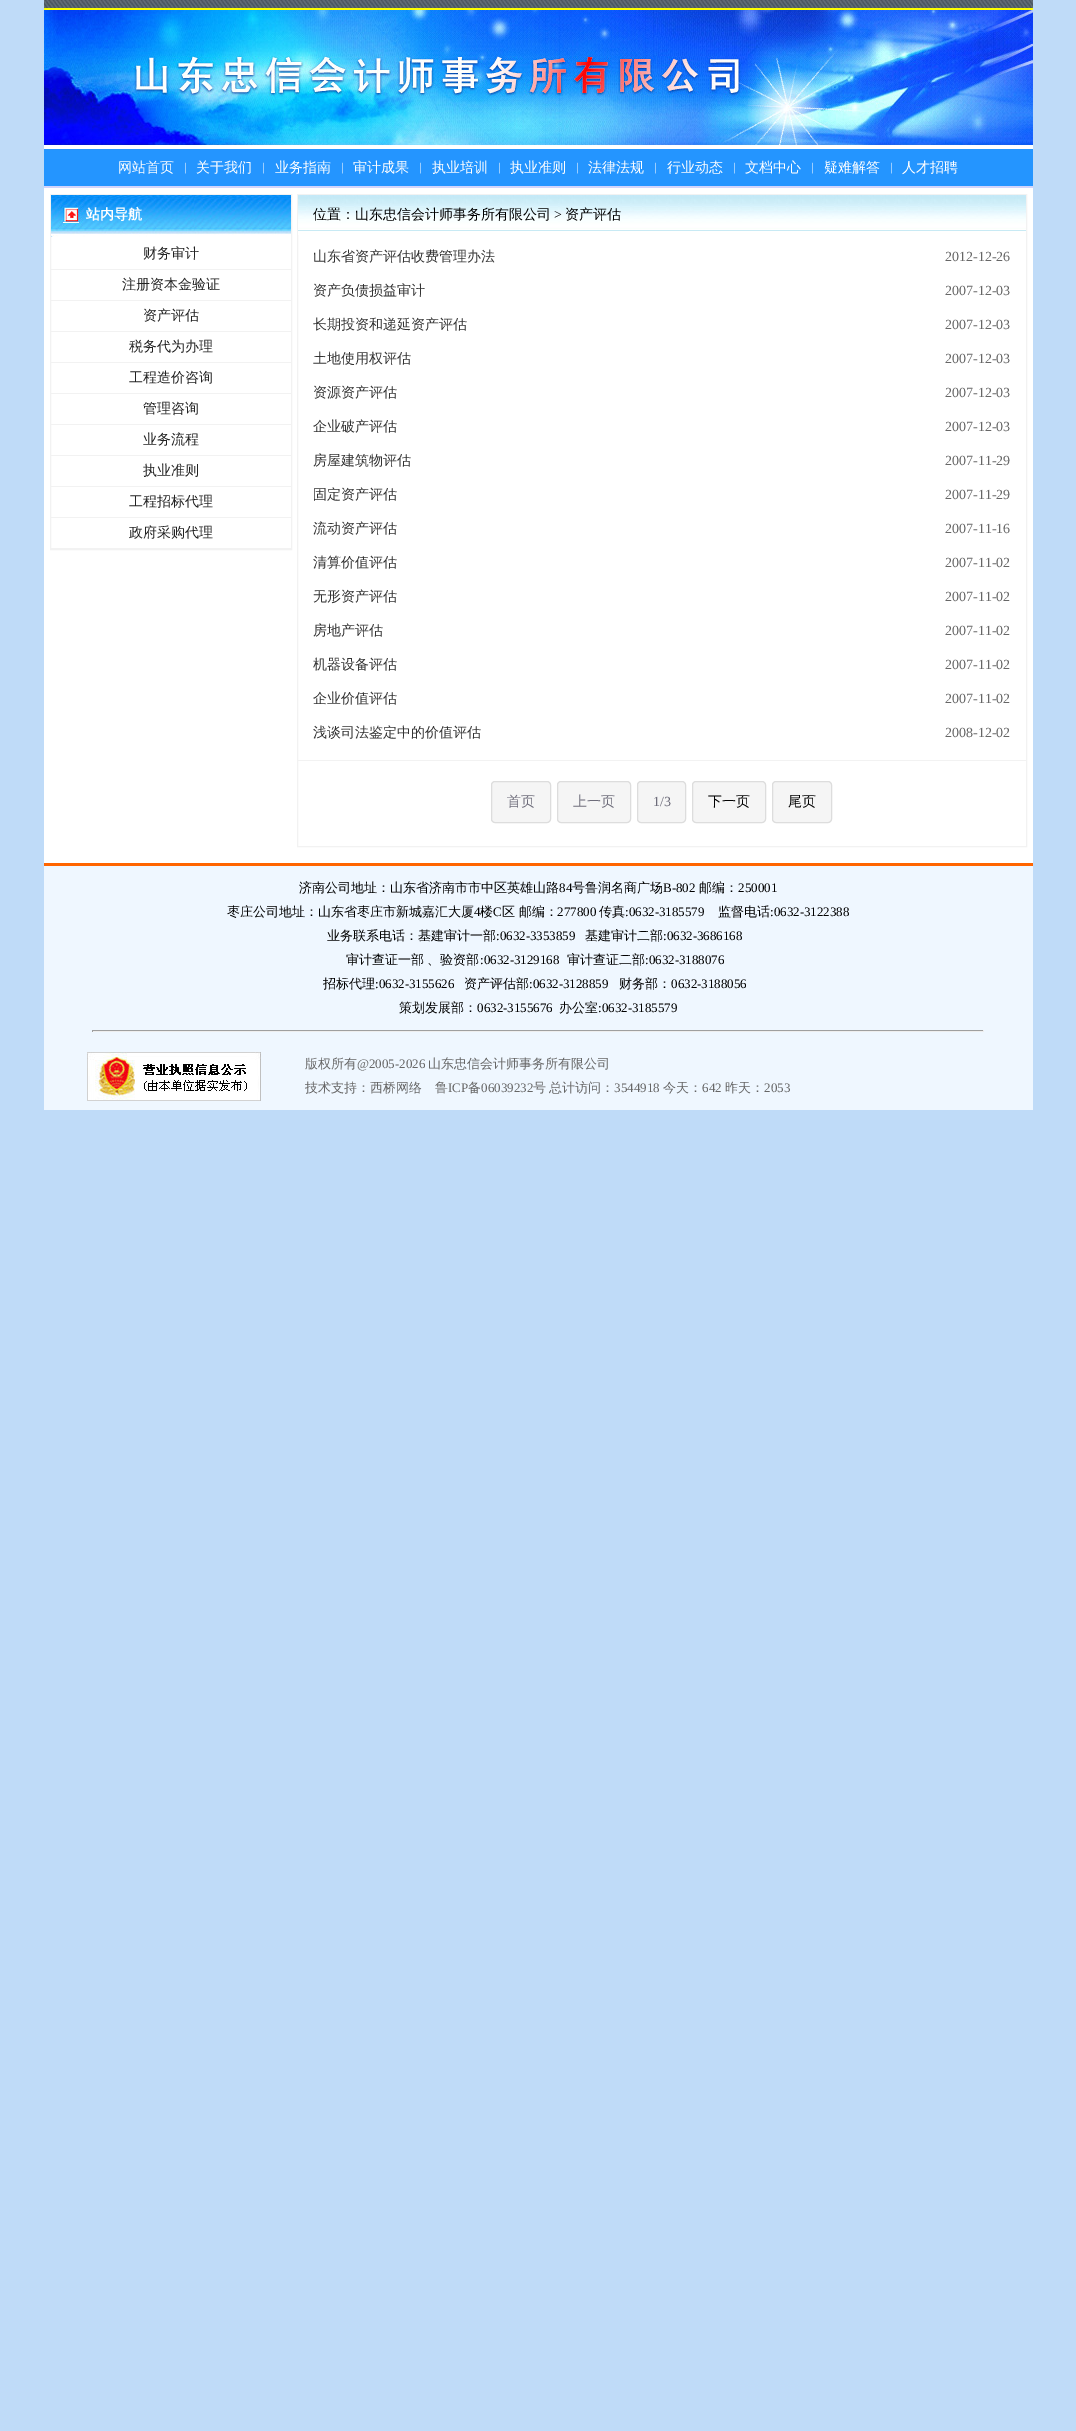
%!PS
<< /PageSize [1076 2431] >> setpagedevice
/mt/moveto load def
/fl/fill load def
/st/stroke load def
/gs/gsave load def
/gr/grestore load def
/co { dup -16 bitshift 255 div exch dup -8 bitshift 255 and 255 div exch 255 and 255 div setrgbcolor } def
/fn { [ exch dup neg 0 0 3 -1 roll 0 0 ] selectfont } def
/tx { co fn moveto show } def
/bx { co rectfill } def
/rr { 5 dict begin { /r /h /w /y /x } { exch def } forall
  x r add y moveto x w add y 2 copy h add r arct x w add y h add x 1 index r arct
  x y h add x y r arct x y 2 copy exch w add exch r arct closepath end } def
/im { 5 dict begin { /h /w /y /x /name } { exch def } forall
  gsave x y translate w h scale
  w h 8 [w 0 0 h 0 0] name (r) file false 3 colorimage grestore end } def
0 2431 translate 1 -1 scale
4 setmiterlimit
0 0 1076 2431 16#BFDBF8 bx
44 145 989 4 16#FFFFFF bx
(media/1.raw) 44 0 989 145 im
44 149 989 37 16#2495FF bx
44 186 989 2 16#D1D4FC bx
44 188 989 675 16#FFFFFF bx
16#F2F2F2 co
50.5 194.5 241 355 rectstroke
(media/2.raw) 51 195 240 42 im
51 269 240 1 16#F2F2F2 bx
51 300 240 1 16#F2F2F2 bx
51 331 240 1 16#F2F2F2 bx
51 362 240 1 16#F2F2F2 bx
51 393 240 1 16#F2F2F2 bx
51 424 240 1 16#F2F2F2 bx
51 455 240 1 16#F2F2F2 bx
51 486 240 1 16#F2F2F2 bx
51 517 240 1 16#F2F2F2 bx
51 548 240 1 16#F2F2F2 bx
297.5 194.5 729 652 rectstroke
(media/3.raw) 298 195 728 40 im
298 760 728 1 16#F2F2F2 bx
16#F5F5F5 co
491.5 781.5 59 41 3.5 rr gs fl gr
16#DDDDDD co
st
16#F5F5F5 co
557.5 781.5 73 41 3.5 rr gs fl gr
16#DDDDDD co
st
16#F5F5F5 co
637.5 781.5 48 41 3.5 rr gs fl gr
16#DDDDDD co
st
16#F5F5F5 co
692.5 781.5 73 41 3.5 rr gs fl gr
16#DDDDDD co
st
16#F5F5F5 co
772.5 781.5 59 41 3.5 rr gs fl gr
16#DDDDDD co
st
44 866 989 244 16#EFF7FF bx
44 863 989 3 16#FF6500 bx
92 1030 892 1 16#9F9F9F bx
983 1030 1 2 16#EEEEEE bx
92 1031 892 1 16#EEEEEE bx
92 1030 1 2 16#9F9F9F bx
(media/4.raw) 87 1052 174 49 im
(网站首页) 118 172 /WenQuanYiZenHei-Medium 14 16#FFFFFF tx
(|) 184 171 /LiberationSerif-Regular 12 16#FFFFFF tx
(关于我们) 196 172 /WenQuanYiZenHei-Medium 14 16#FFFFFF tx
(|) 262 171 /LiberationSerif-Regular 12 16#FFFFFF tx
(业务指南) 275 172 /WenQuanYiZenHei-Medium 14 16#FFFFFF tx
(|) 341 171 /LiberationSerif-Regular 12 16#FFFFFF tx
(审计成果) 353 172 /WenQuanYiZenHei-Medium 14 16#FFFFFF tx
(|) 419 171 /LiberationSerif-Regular 12 16#FFFFFF tx
(执业培训) 432 172 /WenQuanYiZenHei-Medium 14 16#FFFFFF tx
(|) 498 171 /LiberationSerif-Regular 12 16#FFFFFF tx
(执业准则) 510 172 /WenQuanYiZenHei-Medium 14 16#FFFFFF tx
(|) 576 171 /LiberationSerif-Regular 12 16#FFFFFF tx
(法律法规) 588 172 /WenQuanYiZenHei-Medium 14 16#FFFFFF tx
(|) 654 171 /LiberationSerif-Regular 12 16#FFFFFF tx
(行业动态) 667 172 /WenQuanYiZenHei-Medium 14 16#FFFFFF tx
(|) 733 171 /LiberationSerif-Regular 12 16#FFFFFF tx
(文档中心) 745 172 /WenQuanYiZenHei-Medium 14 16#FFFFFF tx
(|) 811 171 /LiberationSerif-Regular 12 16#FFFFFF tx
(疑难解答) 824 172 /WenQuanYiZenHei-Medium 14 16#FFFFFF tx
(|) 890 171 /LiberationSerif-Regular 12 16#FFFFFF tx
(人才招聘) 902 172 /WenQuanYiZenHei-Medium 14 16#FFFFFF tx
(站内导航) 86 219 /WenQuanYiZenHei-Bold 14 16#FFFFFF tx
(财务审计) 143 258 /WenQuanYiZenHei-Medium 14 16#222222 tx
(注册资本金验证) 122 289 /WenQuanYiZenHei-Medium 14 16#222222 tx
(资产评估) 143 320 /WenQuanYiZenHei-Medium 14 16#222222 tx
(税务代为办理) 129 351 /WenQuanYiZenHei-Medium 14 16#222222 tx
(工程造价咨询) 129 382 /WenQuanYiZenHei-Medium 14 16#222222 tx
(管理咨询) 143 413 /WenQuanYiZenHei-Medium 14 16#222222 tx
(业务流程) 143 444 /WenQuanYiZenHei-Medium 14 16#222222 tx
(执业准则) 143 475 /WenQuanYiZenHei-Medium 14 16#222222 tx
(工程招标代理) 129 506 /WenQuanYiZenHei-Medium 14 16#222222 tx
(政府采购代理) 129 537 /WenQuanYiZenHei-Medium 14 16#222222 tx
(位置：山东忠信会计师事务所有限公司) 313 219 /WenQuanYiZenHei-Medium 14 16#000000 tx
(>) 554 219 /LiberationSerif-Regular 14 16#000000 tx
(资产评估) 565 219 /WenQuanYiZenHei-Medium 14 16#000000 tx
(山东省资产评估收费管理办法) 313 261 /WenQuanYiZenHei-Medium 14 16#333333 tx
(2012-12-26) 945 261 /LiberationSerif-Regular 14 16#666666 tx
(资产负债损益审计) 313 295 /WenQuanYiZenHei-Medium 14 16#333333 tx
(2007-12-03) 945 295 /LiberationSerif-Regular 14 16#666666 tx
(长期投资和递延资产评估) 313 329 /WenQuanYiZenHei-Medium 14 16#333333 tx
(2007-12-03) 945 329 /LiberationSerif-Regular 14 16#666666 tx
(土地使用权评估) 313 363 /WenQuanYiZenHei-Medium 14 16#333333 tx
(2007-12-03) 945 363 /LiberationSerif-Regular 14 16#666666 tx
(资源资产评估) 313 397 /WenQuanYiZenHei-Medium 14 16#333333 tx
(2007-12-03) 945 397 /LiberationSerif-Regular 14 16#666666 tx
(企业破产评估) 313 431 /WenQuanYiZenHei-Medium 14 16#333333 tx
(2007-12-03) 945 431 /LiberationSerif-Regular 14 16#666666 tx
(房屋建筑物评估) 313 465 /WenQuanYiZenHei-Medium 14 16#333333 tx
(2007-11-29) 945 465 /LiberationSerif-Regular 14 16#666666 tx
(固定资产评估) 313 499 /WenQuanYiZenHei-Medium 14 16#333333 tx
(2007-11-29) 945 499 /LiberationSerif-Regular 14 16#666666 tx
(流动资产评估) 313 533 /WenQuanYiZenHei-Medium 14 16#333333 tx
(2007-11-16) 945 533 /LiberationSerif-Regular 14 16#666666 tx
(清算价值评估) 313 567 /WenQuanYiZenHei-Medium 14 16#333333 tx
(2007-11-02) 945 567 /LiberationSerif-Regular 14 16#666666 tx
(无形资产评估) 313 601 /WenQuanYiZenHei-Medium 14 16#333333 tx
(2007-11-02) 945 601 /LiberationSerif-Regular 14 16#666666 tx
(房地产评估) 313 635 /WenQuanYiZenHei-Medium 14 16#333333 tx
(2007-11-02) 945 635 /LiberationSerif-Regular 14 16#666666 tx
(机器设备评估) 313 669 /WenQuanYiZenHei-Medium 14 16#333333 tx
(2007-11-02) 945 669 /LiberationSerif-Regular 14 16#666666 tx
(企业价值评估) 313 703 /WenQuanYiZenHei-Medium 14 16#333333 tx
(2007-11-02) 945 703 /LiberationSerif-Regular 14 16#666666 tx
(浅谈司法鉴定中的价值评估) 313 737 /WenQuanYiZenHei-Medium 14 16#333333 tx
(2008-12-02) 945 737 /LiberationSerif-Regular 14 16#666666 tx
(首页) 507 806 /WenQuanYiZenHei-Medium 14 16#6D6C7A tx
(上一页) 573 806 /WenQuanYiZenHei-Medium 14 16#6D6C7A tx
(1/3) 653 806 /LiberationSerif-Regular 14 16#6D6C7A tx
(下一页) 708 806 /WenQuanYiZenHei-Medium 14 16#000000 tx
(尾页) 788 806 /WenQuanYiZenHei-Medium 14 16#000000 tx
(济南公司地址：山东省济南市市中区英雄山路) 299 892 /WenQuanYiZenHei-Medium 13 16#000000 tx
(84) 559 892 /LiberationSerif-Regular 13 16#000000 tx
(号鲁润名商广场) 572 892 /WenQuanYiZenHei-Medium 13 16#000000 tx
(B-802) 663 892 /LiberationSerif-Regular 13 16#000000 tx
(邮编：) 699 892 /WenQuanYiZenHei-Medium 13 16#000000 tx
(250001) 738 892 /LiberationSerif-Regular 13 16#000000 tx
(枣庄公司地址：山东省枣庄市新城嘉汇大厦) 227 916 /WenQuanYiZenHei-Medium 13 16#000000 tx
(4) 474 916 /LiberationSerif-Regular 13 16#000000 tx
(楼) 480 916 /WenQuanYiZenHei-Medium 13 16#000000 tx
(C) 493 916 /LiberationSerif-Regular 13 16#000000 tx
(区 邮编：) 502 916 /WenQuanYiZenHei-Medium 13 16#000000 tx
(277800) 557 916 /LiberationSerif-Regular 13 16#000000 tx
(传真) 599 916 /WenQuanYiZenHei-Medium 13 16#000000 tx
(:0632-3185579) 625 916 /LiberationSerif-Regular 13 16#000000 tx
(监督电话) 718 916 /WenQuanYiZenHei-Medium 13 16#000000 tx
(:0632-3122388) 770 916 /LiberationSerif-Regular 13 16#000000 tx
(业务联系电话：基建审计一部) 327 940 /WenQuanYiZenHei-Medium 13 16#000000 tx
(:0632-3353859) 496 940 /LiberationSerif-Regular 13 16#000000 tx
(基建审计二部) 585 940 /WenQuanYiZenHei-Medium 13 16#000000 tx
(:0632-3686168) 663 940 /LiberationSerif-Regular 13 16#000000 tx
/WenQuanYiZenHei-Medium 13 fn
346 964 mt -1 0 32 (审计查证一部 、验资部) widthshow
(:0632-3129168) 480 964 /LiberationSerif-Regular 13 16#000000 tx
(审计查证二部) 567 964 /WenQuanYiZenHei-Medium 13 16#000000 tx
(:0632-3188076) 645 964 /LiberationSerif-Regular 13 16#000000 tx
(招标代理) 323 988 /WenQuanYiZenHei-Medium 13 16#000000 tx
(:0632-3155626) 375 988 /LiberationSerif-Regular 13 16#000000 tx
(资产评估部) 464 988 /WenQuanYiZenHei-Medium 13 16#000000 tx
(:0632-3128859) 529 988 /LiberationSerif-Regular 13 16#000000 tx
(财务部：) 619 988 /WenQuanYiZenHei-Medium 13 16#000000 tx
(0632-3188056) 671 988 /LiberationSerif-Regular 13 16#000000 tx
(策划发展部：) 399 1012 /WenQuanYiZenHei-Medium 13 16#000000 tx
(0632-3155676) 477 1012 /LiberationSerif-Regular 13 16#000000 tx
(办公室) 559 1012 /WenQuanYiZenHei-Medium 13 16#000000 tx
(:0632-3185579) 598 1012 /LiberationSerif-Regular 13 16#000000 tx
(版权所有) 305 1068 /WenQuanYiZenHei-Medium 13 16#666666 tx
(@2005-2026) 357 1068 /LiberationSerif-Regular 13 16#666666 tx
(山东忠信会计师事务所有限公司) 428 1068 /WenQuanYiZenHei-Medium 13 16#666666 tx
(技术支持：西桥网络) 305 1092 /WenQuanYiZenHei-Medium 13 16#666666 tx
(鲁) 435 1092 /WenQuanYiZenHei-Medium 13 16#666666 tx
(ICP) 448 1092 /LiberationSerif-Regular 13 16#666666 tx
(备) 468 1092 /WenQuanYiZenHei-Medium 13 16#666666 tx
(06039232) 481 1092 /LiberationSerif-Regular 13 16#666666 tx
(号) 533 1092 /WenQuanYiZenHei-Medium 13 16#666666 tx
(总计访问：) 549 1092 /WenQuanYiZenHei-Medium 13 16#666666 tx
(3544918) 614 1092 /LiberationSerif-Regular 13 16#666666 tx
(今天：) 663 1092 /WenQuanYiZenHei-Medium 13 16#666666 tx
(642) 702 1092 /LiberationSerif-Regular 13 16#666666 tx
(昨天：) 725 1092 /WenQuanYiZenHei-Medium 13 16#666666 tx
(2053) 764 1092 /LiberationSerif-Regular 13 16#666666 tx
showpage
